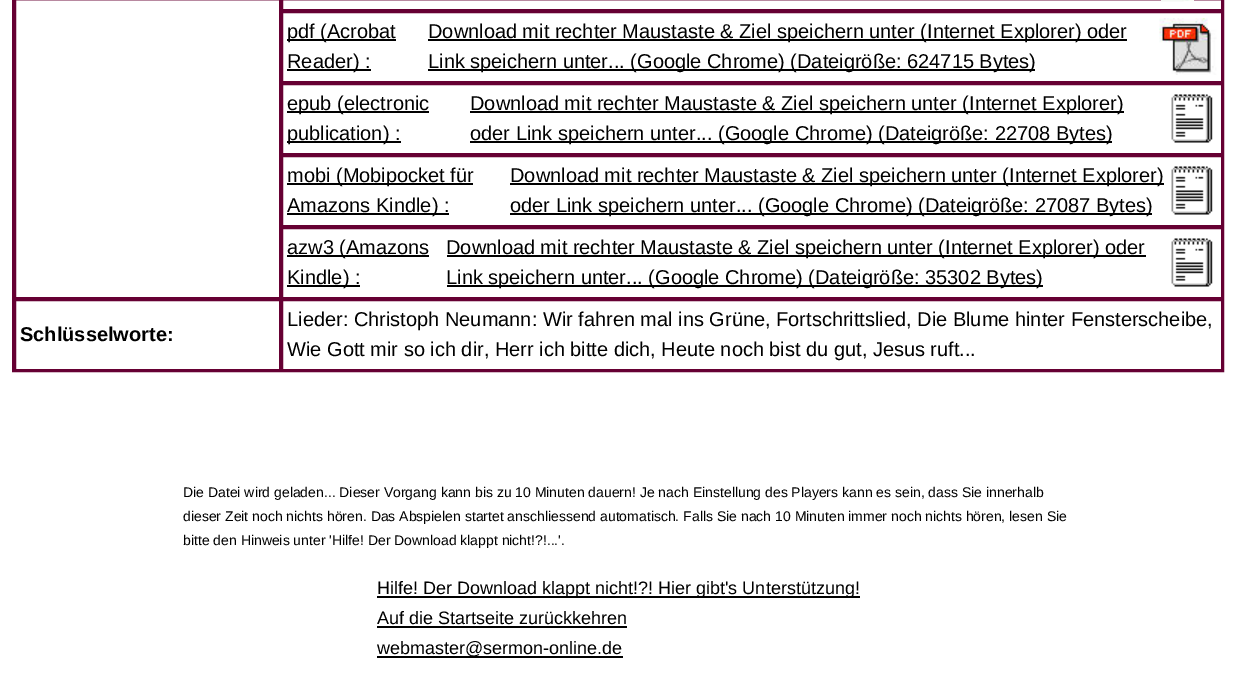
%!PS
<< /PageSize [1235 675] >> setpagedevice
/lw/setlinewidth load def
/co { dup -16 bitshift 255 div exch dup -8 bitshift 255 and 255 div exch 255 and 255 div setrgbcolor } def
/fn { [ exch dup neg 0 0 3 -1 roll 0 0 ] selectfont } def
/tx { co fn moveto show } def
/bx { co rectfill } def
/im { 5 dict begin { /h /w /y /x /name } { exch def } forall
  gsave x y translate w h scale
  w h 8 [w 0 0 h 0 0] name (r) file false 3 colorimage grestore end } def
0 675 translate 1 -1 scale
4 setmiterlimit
0 0 1235 675 16#FFFFFF bx
16#660033 co
2 lw
13 -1 1210 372 rectstroke
15 -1 265 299 rectstroke
282 -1 940 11 rectstroke
(media/1.raw) 1161 0 33 2 im
282 12 940 70 rectstroke
287 39 109 2 16#000000 bx
287 69 84 2 16#000000 bx
428 39 699 2 16#000000 bx
428 69 607 2 16#000000 bx
(media/2.raw) 1159 18 58 57 im
16#660033 co
282 84 940 70 rectstroke
287 111 142 2 16#000000 bx
287 141 114 2 16#000000 bx
470 111 654 2 16#000000 bx
470 141 642 2 16#000000 bx
(media/3.raw) 1171 94 42 49 im
16#660033 co
282 156 940 70 rectstroke
287 183 186 2 16#000000 bx
287 213 162 2 16#000000 bx
510 183 654 2 16#000000 bx
510 213 642 2 16#000000 bx
(media/3.raw) 1171 166 42 49 im
16#660033 co
282 228 940 70 rectstroke
287 255 142 2 16#000000 bx
287 285 73 2 16#000000 bx
447 255 699 2 16#000000 bx
447 285 596 2 16#000000 bx
(media/3.raw) 1171 238 42 49 im
16#660033 co
15 300 265 70 rectstroke
282 300 940 70 rectstroke
377 596 483 2 16#000000 bx
377 626 250 2 16#000000 bx
377 656 246 2 16#000000 bx
(pdf \(Acrobat) 287 38 /LiberationSans-Regular 20 16#000000 tx
(Reader\) :) 287 68 /LiberationSans-Regular 20 16#000000 tx
(Download mit rechter Maustaste & Ziel speichern unter \(Internet Explorer\) oder) 428 38 /LiberationSans-Regular 20 16#000000 tx
(Link speichern unter... \(Google Chrome\) \(Dateigröße: 624715 Bytes\)) 428 68 /LiberationSans-Regular 20 16#000000 tx
(epub \(electronic) 287 110 /LiberationSans-Regular 20 16#000000 tx
(publication\) :) 287 140 /LiberationSans-Regular 20 16#000000 tx
(Download mit rechter Maustaste & Ziel speichern unter \(Internet Explorer\)) 470 110 /LiberationSans-Regular 20 16#000000 tx
(oder Link speichern unter... \(Google Chrome\) \(Dateigröße: 22708 Bytes\)) 470 140 /LiberationSans-Regular 20 16#000000 tx
(mobi \(Mobipocket für) 287 182 /LiberationSans-Regular 20 16#000000 tx
(Amazons Kindle\) :) 287 212 /LiberationSans-Regular 20 16#000000 tx
(Download mit rechter Maustaste & Ziel speichern unter \(Internet Explorer\)) 510 182 /LiberationSans-Regular 20 16#000000 tx
(oder Link speichern unter... \(Google Chrome\) \(Dateigröße: 27087 Bytes\)) 510 212 /LiberationSans-Regular 20 16#000000 tx
(azw3 \(Amazons) 287 254 /LiberationSans-Regular 20 16#000000 tx
(Kindle\) :) 287 284 /LiberationSans-Regular 20 16#000000 tx
(Download mit rechter Maustaste & Ziel speichern unter \(Internet Explorer\) oder) 446 254 /LiberationSans-Regular 20 16#000000 tx
(Link speichern unter... \(Google Chrome\) \(Dateigröße: 35302 Bytes\)) 446 284 /LiberationSans-Regular 20 16#000000 tx
(Schlüsselworte:) 20 341 /LiberationSans-Bold 20 16#000000 tx
(Lieder: Christoph Neumann: Wir fahren mal ins Grüne, Fortschrittslied, Die Blume hinter Fensterscheibe,) 287 326 /LiberationSans-Regular 20 16#000000 tx
(Wie Gott mir so ich dir, Herr ich bitte dich, Heute noch bist du gut, Jesus ruft...) 287 356 /LiberationSans-Regular 20 16#000000 tx
(Die Datei wird geladen... Dieser Vorgang kann bis zu 10 Minuten dauern! Je nach Einstellung des Players kann es sein, dass Sie innerhalb) 183 497 /LiberationSans-Regular 14 16#000000 tx
(dieser Zeit noch nichts hören. Das Abspielen startet anschliessend automatisch. Falls Sie nach 10 Minuten immer noch nichts hören, lesen Sie) 183 521 /LiberationSans-Regular 14 16#000000 tx
(bitte den Hinweis unter 'Hilfe! Der Download klappt nicht!?!...'.) 183 545 /LiberationSans-Regular 14 16#000000 tx
(Hilfe! Der Download klappt nicht!?! Hier gibt's Unterstützung!) 377 594 /LiberationSans-Regular 18 16#000000 tx
(Auf die Startseite zurückkehren) 377 624 /LiberationSans-Regular 18 16#000000 tx
(webmaster@sermon-online.de) 377 654 /LiberationSans-Regular 18 16#000000 tx
showpage
